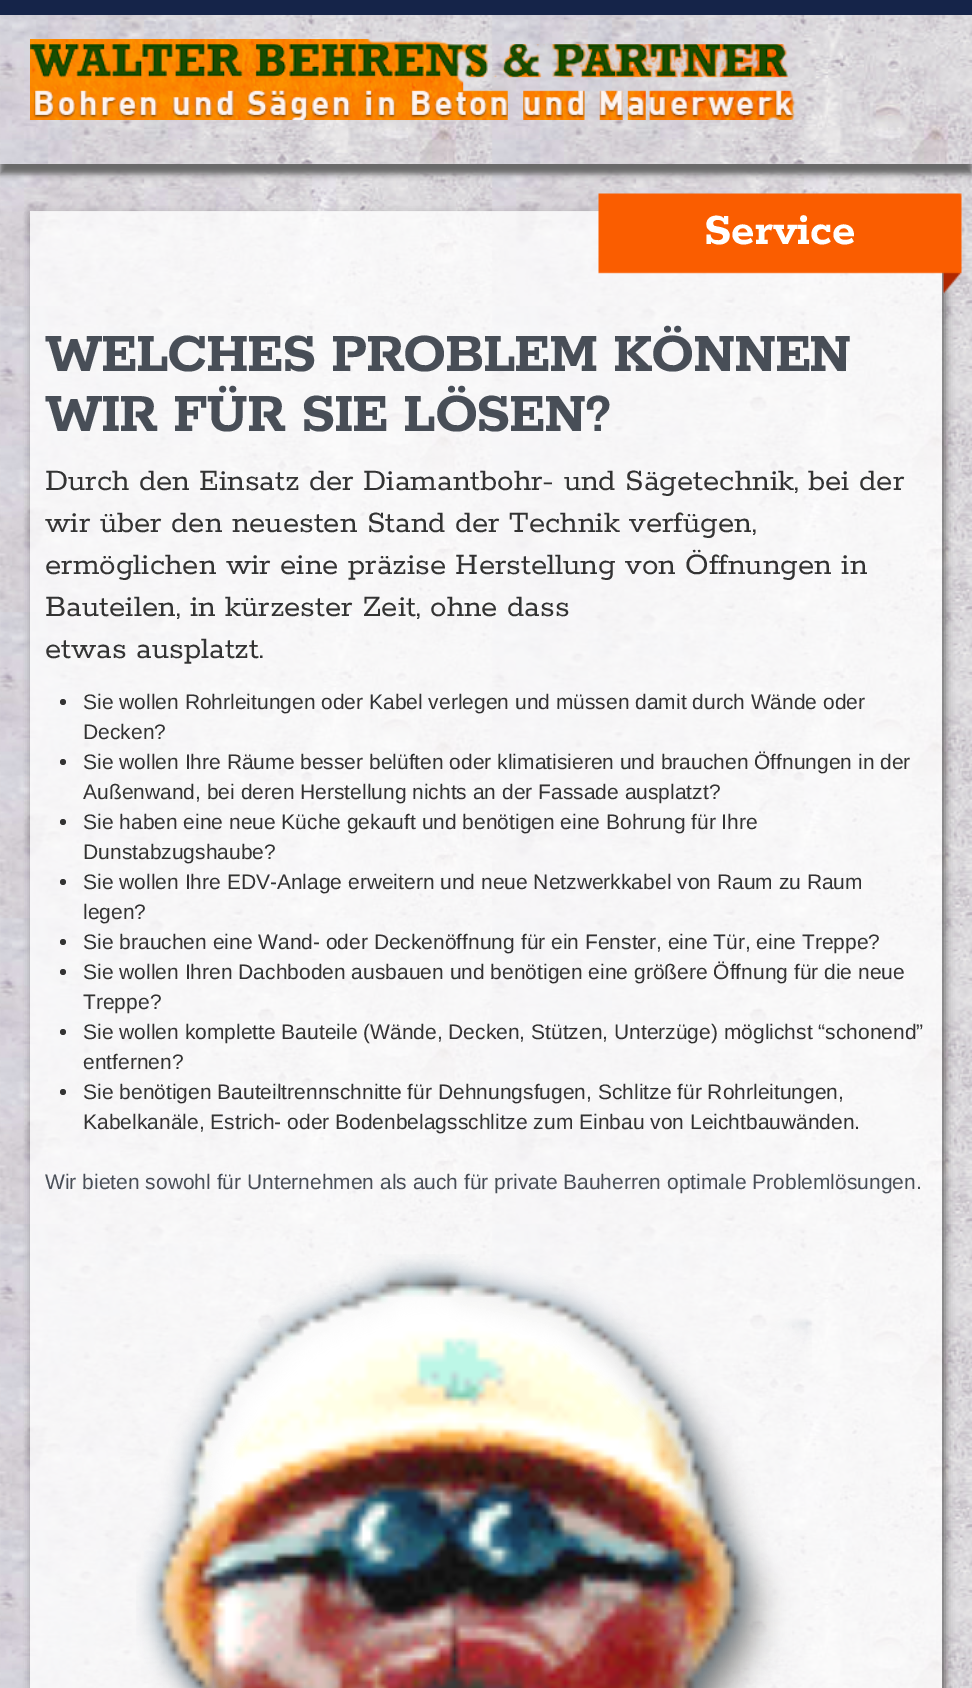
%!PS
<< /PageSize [972 1688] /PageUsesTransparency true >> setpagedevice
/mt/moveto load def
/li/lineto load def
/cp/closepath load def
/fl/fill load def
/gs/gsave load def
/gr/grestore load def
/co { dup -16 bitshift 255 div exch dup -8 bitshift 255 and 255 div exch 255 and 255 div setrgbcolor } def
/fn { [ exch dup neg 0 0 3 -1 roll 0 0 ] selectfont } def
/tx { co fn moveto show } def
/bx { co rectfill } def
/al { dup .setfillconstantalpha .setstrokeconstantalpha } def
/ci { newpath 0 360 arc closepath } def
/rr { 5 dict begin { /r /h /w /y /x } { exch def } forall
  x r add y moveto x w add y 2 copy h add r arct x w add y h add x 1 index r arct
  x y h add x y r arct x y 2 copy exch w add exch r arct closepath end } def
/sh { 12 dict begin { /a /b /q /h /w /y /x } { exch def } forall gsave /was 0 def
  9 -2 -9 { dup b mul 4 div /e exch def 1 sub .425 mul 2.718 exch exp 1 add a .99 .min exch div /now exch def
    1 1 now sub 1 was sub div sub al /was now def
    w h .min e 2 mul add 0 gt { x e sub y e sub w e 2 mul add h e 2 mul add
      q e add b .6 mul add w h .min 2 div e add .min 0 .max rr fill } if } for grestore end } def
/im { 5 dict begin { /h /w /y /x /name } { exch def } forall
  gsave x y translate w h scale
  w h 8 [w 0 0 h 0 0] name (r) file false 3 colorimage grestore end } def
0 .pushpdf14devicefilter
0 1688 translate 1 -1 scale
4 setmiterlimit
0 0 972 1688 16#FFFFFF bx
(media/1.raw) 0 15 972 1673 im
gs
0 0 mt 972 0 li 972 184 li 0 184 li cp 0 -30 mt 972 -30 li 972 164 li 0 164 li cp eoclip newpath
16#666666 co
0 -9 972 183 0 3 1 sh
gr
0 0 972 15 16#152449 bx
(media/2.raw) 30 39 765 81 im
gs
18 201 mt 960 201 li 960 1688 li 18 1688 li cp 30 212 mt 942 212 li 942 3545 li 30 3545 li cp eoclip newpath
16#666666 co
33 216 912 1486 0 4.5 1 sh
gr
0.8 al
30 211 912 1477 16#FFFFFF bx
1 al
(media/3.raw) 598 193 364 101 im
16#333333 co
63 702 3 ci fl
63 762 3 ci fl
63 822 3 ci fl
63 882 3 ci fl
63 942 3 ci fl
63 972 3 ci fl
63 1032 3 ci fl
63 1092 3 ci fl
(media/4.raw) 136 1254 676 434 im
(Service) 704 244 /Rokkitt-Bold 48 16#FFFFFF tx
/Rokkitt-Bold 60 fn
16#484E57 co
45 371 mt -1.5 0 (WELCHES PROBLEM KÖNNEN) ashow
45 431 mt -1.5 0 (WIR FÜR SIE LÖSEN?) ashow
(Durch den Einsatz der Diamantbohr- und Sägetechnik, bei der) 45 490 /Rokkitt-Regular 33 16#333333 tx
(wir über den neuesten Stand der Technik verfügen,) 45 532 /Rokkitt-Regular 33 16#333333 tx
(ermöglichen wir eine präzise Herstellung von Öffnungen in) 45 574 /Rokkitt-Regular 33 16#333333 tx
(Bauteilen, in kürzester Zeit, ohne dass) 45 616 /Rokkitt-Regular 33 16#333333 tx
(etwas ausplatzt.) 45 658 /Rokkitt-Regular 33 16#333333 tx
(Sie wollen Rohrleitungen oder Kabel verlegen und müssen damit durch Wände oder) 83 709 /LiberationSans-Regular 21 16#333333 tx
(Decken?) 83 739 /LiberationSans-Regular 21 16#333333 tx
(Sie wollen Ihre Räume besser belüften oder klimatisieren und brauchen Öffnungen in der) 83 769 /LiberationSans-Regular 21 16#333333 tx
(Außenwand, bei deren Herstellung nichts an der Fassade ausplatzt?) 83 799 /LiberationSans-Regular 21 16#333333 tx
(Sie haben eine neue Küche gekauft und benötigen eine Bohrung für Ihre) 83 829 /LiberationSans-Regular 21 16#333333 tx
(Dunstabzugshaube?) 83 859 /LiberationSans-Regular 21 16#333333 tx
(Sie wollen Ihre EDV-Anlage erweitern und neue Netzwerkkabel von Raum zu Raum) 83 889 /LiberationSans-Regular 21 16#333333 tx
(legen?) 83 919 /LiberationSans-Regular 21 16#333333 tx
(Sie brauchen eine Wand- oder Deckenöffnung für ein Fenster, eine Tür, eine Treppe?) 83 949 /LiberationSans-Regular 21 16#333333 tx
(Sie wollen Ihren Dachboden ausbauen und benötigen eine größere Öffnung für die neue) 83 979 /LiberationSans-Regular 21 16#333333 tx
(Treppe?) 83 1009 /LiberationSans-Regular 21 16#333333 tx
(Sie wollen komplette Bauteile \(Wände, Decken, Stützen, Unterzüge\) möglichst “schonend”) 83 1039 /LiberationSans-Regular 21 16#333333 tx
(entfernen?) 83 1069 /LiberationSans-Regular 21 16#333333 tx
(Sie benötigen Bauteiltrennschnitte für Dehnungsfugen, Schlitze für Rohrleitungen,) 83 1099 /LiberationSans-Regular 21 16#333333 tx
(Kabelkanäle, Estrich- oder Bodenbelagsschlitze zum Einbau von Leichtbauwänden.) 83 1129 /LiberationSans-Regular 21 16#333333 tx
(Wir bieten sowohl für Unternehmen als auch für private Bauherren optimale Problemlösungen.) 45 1189 /LiberationSans-Regular 21 16#484E57 tx
.poppdf14devicefilter showpage
